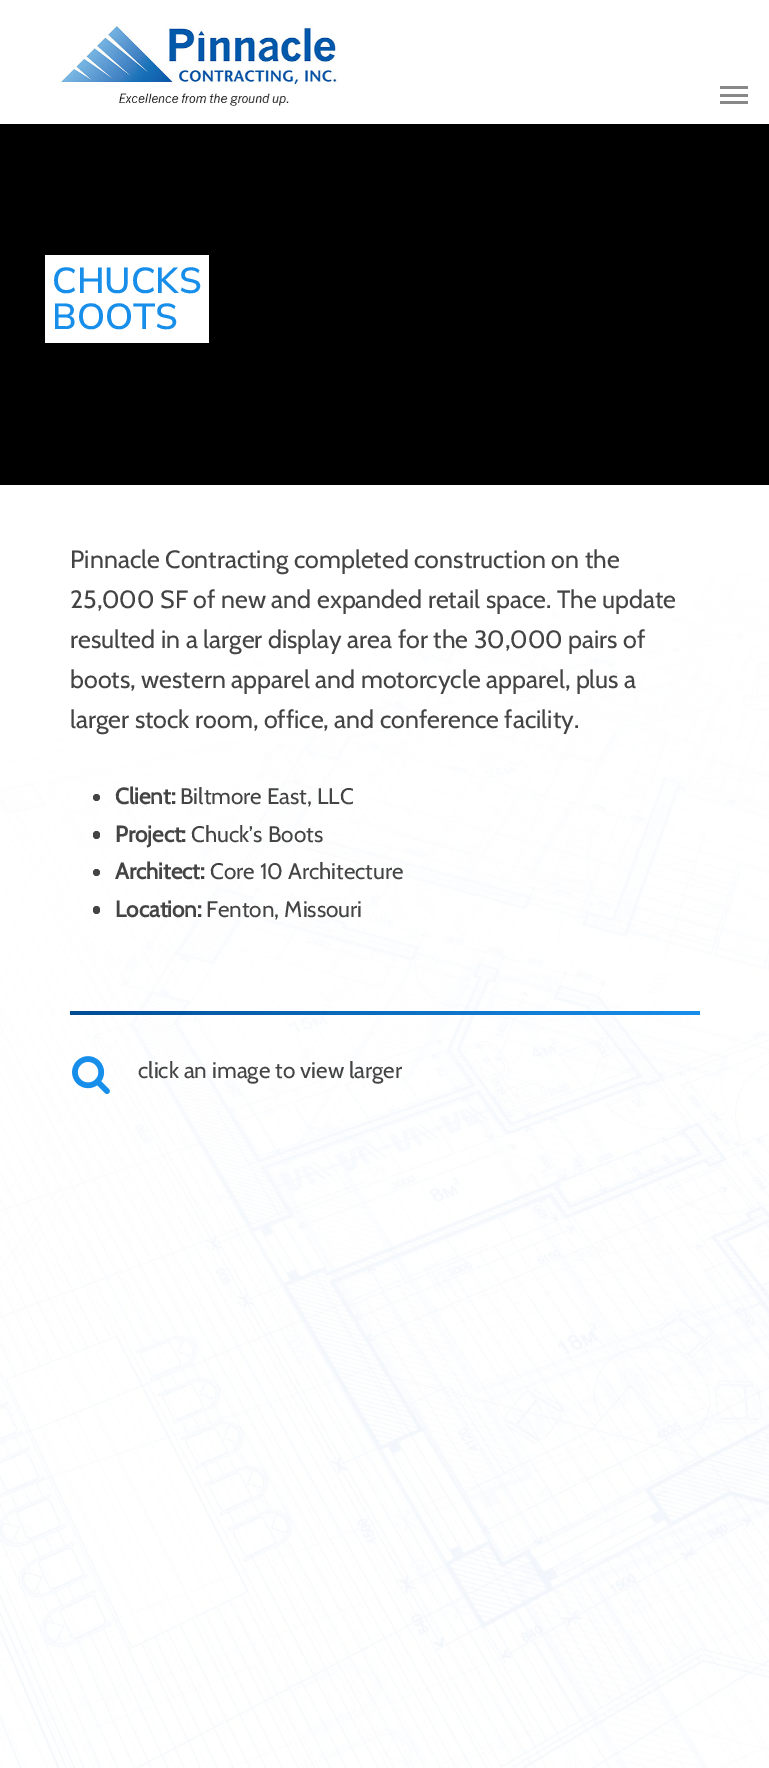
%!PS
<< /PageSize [769 1768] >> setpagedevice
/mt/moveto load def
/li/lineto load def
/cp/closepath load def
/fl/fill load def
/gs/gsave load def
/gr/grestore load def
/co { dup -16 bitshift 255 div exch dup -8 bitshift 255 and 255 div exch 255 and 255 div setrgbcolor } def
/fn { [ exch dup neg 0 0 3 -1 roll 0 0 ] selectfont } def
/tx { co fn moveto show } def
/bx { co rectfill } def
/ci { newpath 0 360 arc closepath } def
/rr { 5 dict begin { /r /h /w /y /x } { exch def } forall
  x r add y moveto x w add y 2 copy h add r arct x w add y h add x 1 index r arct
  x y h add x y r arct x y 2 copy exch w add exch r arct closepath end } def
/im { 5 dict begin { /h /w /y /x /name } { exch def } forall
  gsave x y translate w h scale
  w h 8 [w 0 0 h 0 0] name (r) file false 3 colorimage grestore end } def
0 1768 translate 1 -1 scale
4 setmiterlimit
0 0 769 1768 16#000000 bx
0 0 769 124 16#FFFFFF bx
(media/1.raw) 60 26 279 80 im
720 86 28 3 16#888888 bx
720 101 28 3 16#888888 bx
720 94 28 3 16#888888 bx
45 255 164 88 16#FFFFFF bx
0 485 769 85 16#FFFFFF bx
(media/3.raw) 0 570 769 1198 im
16#444444 co
96.5 797.5 3.5 ci fl
93 831 7 8 3.5 rr fl
96.5 872.5 3.5 ci fl
93 906 7 8 3.5 rr fl
gs 70 1011 mt 700 1011 li 700 1015 li 70 1015 li cp clip newpath
<< /ShadingType 2 /ColorSpace /DeviceRGB /Coords [70 1013 700 1013] /Extend [true true] /Function << /FunctionType 2 /Domain [0 1] /C0 [0 .302 .58] /C1 [.094 .557 .922] /N 1 >> >> shfill gr
(media/2.raw) 72 1056 38 38 im
(CHUCKS) 52 293 /NunitoSans-SemiBold 36.25 16#188EEB tx
(BOOTS) 52 329 /NunitoSans-SemiBold 36.25 16#188EEB tx
(Pinnacle Contracting completed construction on the) 70 568 /Cabin-Regular 25 16#444444 tx
(25,000 SF of new and expanded retail space. The update) 70 608 /Cabin-Regular 25 16#444444 tx
(resulted in a larger display area for the 30,000 pairs of) 70 648 /Cabin-Regular 25 16#444444 tx
(boots, western apparel and motorcycle apparel, plus a) 70 688 /Cabin-Regular 25 16#444444 tx
(larger stock room, office, and conference facility.) 70 728 /Cabin-Regular 25 16#444444 tx
(Client:) 115 804 /Cabin-Bold 22.5 16#444444 tx
(Biltmore East, LLC) 180 804 /Cabin-Regular 22.5 16#444444 tx
(Project:) 115 842 /Cabin-Bold 22.5 16#444444 tx
(Chuck’s Boots) 191 842 /Cabin-Regular 22.5 16#444444 tx
(Architect:) 115 879 /Cabin-Bold 22.5 16#444444 tx
(Core 10 Architecture) 210 879 /Cabin-Regular 22.5 16#444444 tx
(Location:) 115 917 /Cabin-Bold 22.5 16#444444 tx
(Fenton, Missouri) 206 917 /Cabin-Regular 22.5 16#444444 tx
(click an image to view larger) 138 1078 /Cabin-Regular 22.5 16#444444 tx
showpage
